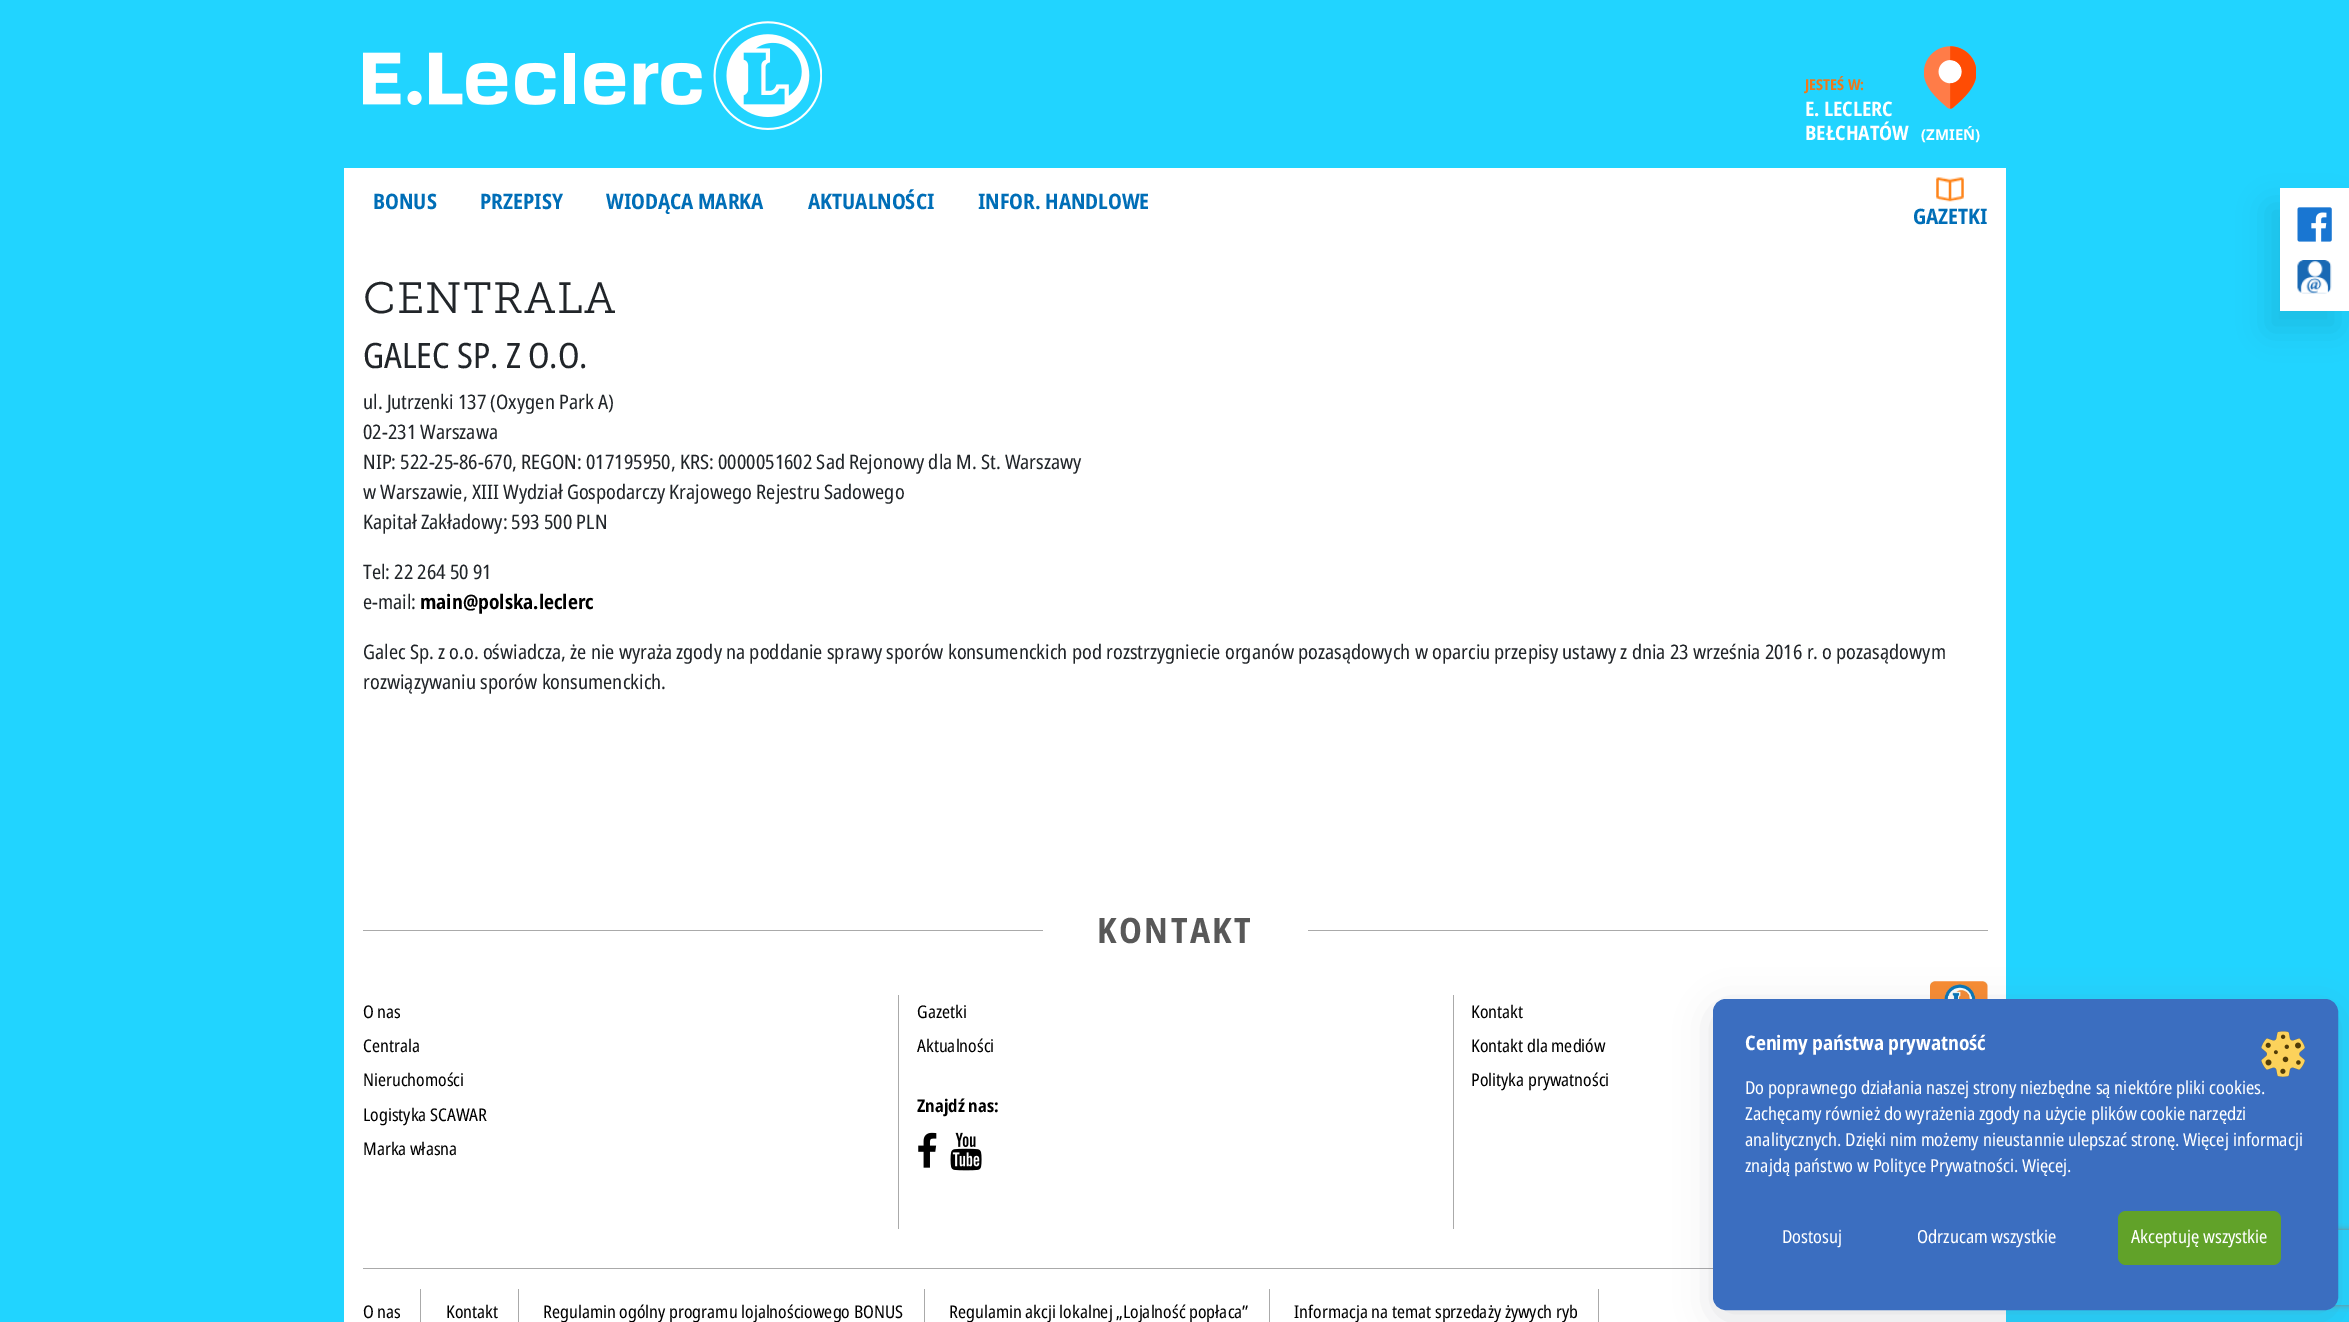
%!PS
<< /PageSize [2349 1322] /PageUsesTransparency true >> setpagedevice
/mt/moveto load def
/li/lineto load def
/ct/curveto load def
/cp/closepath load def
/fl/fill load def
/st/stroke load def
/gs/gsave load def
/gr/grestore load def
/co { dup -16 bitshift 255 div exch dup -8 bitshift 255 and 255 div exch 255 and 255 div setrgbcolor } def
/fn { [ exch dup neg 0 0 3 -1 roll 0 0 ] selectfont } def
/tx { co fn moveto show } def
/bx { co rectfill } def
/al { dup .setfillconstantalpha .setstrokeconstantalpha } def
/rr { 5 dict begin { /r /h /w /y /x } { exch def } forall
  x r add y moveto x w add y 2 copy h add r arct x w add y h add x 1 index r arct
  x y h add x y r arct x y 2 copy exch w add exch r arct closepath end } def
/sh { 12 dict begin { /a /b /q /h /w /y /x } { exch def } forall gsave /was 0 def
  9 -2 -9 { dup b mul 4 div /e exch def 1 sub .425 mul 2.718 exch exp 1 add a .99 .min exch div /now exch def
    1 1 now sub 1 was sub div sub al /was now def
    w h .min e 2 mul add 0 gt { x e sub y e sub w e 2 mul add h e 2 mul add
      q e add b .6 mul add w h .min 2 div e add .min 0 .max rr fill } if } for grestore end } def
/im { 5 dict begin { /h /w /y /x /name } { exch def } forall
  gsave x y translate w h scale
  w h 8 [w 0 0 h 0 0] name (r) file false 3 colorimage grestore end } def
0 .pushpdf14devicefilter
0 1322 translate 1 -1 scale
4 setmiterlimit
0 0 2349 1322 16#21D4FF bx
(media/1.raw) 363 21 459 109 im
(media/2.raw) 1924 46 52 63 im
344 168 1662 1154 16#FFFFFF bx
(media/3.raw) 1936 177 28 25 im
16#000000 co
2268 206 70 124 0 14.5 .1 sh
2280 188 69 123 16#FFFFFF bx
(media/4.raw) 2297 207 35 35 im
(media/5.raw) 2297 260 35 34 im
363 930 1625 1 16#AAAAAA bx
1043 930 265 1 16#FFFFFF bx
898 995 1 234 16#AAAAAA bx
1453 995 1 234 16#AAAAAA bx
(media/6.raw) 918 1132 19 36 im
(media/7.raw) 950 1132 32 39 im
(media/8.raw) 1930 981 58 18 im
363 1268 1350 1 16#AAAAAA bx
420 1289 1 33 16#AAAAAA bx
518 1289 1 33 16#AAAAAA bx
924 1289 1 33 16#AAAAAA bx
1269 1289 1 33 16#AAAAAA bx
1598 1289 1 33 16#AAAAAA bx
16#64646F co
1713 1008 625 311 13 18 .2 sh
gs
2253 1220 mt 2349 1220 li 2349 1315 li 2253 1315 li cp 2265.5 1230 mt 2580.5 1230 li 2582 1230 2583 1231 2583 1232.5 ct 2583 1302.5 li 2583 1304 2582 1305 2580.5 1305 ct 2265.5 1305 li 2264 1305 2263 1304 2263 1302.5 ct 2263 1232.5 li 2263 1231 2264 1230 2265.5 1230 ct cp eoclip newpath
16#808080 co
2263 1230 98 75 2.5 3 1 sh
gr
16#3B6EC0 co
1713.5 999.5 624 310 12.5 rr gs fl gr
st
(media/9.raw) 2261 1031 44 46 im
16#61A229 co
2118 1211 163 54 8 rr fl
(JESTEŚ W:) 1805 90 /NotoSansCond-Bold 15 16#EE791A tx
(E. LECLERC) 1805 116 /NotoSansCond-Bold 20 16#FFFFFF tx
(BEŁCHATÓW) 1805 140 /NotoSansCond-Bold 20 16#FFFFFF tx
(\(ZMIEŃ\)) 1921 140 /NotoSans-Bold 15 16#FFFFFF tx
(BONUS) 373 209 /NotoSansCond-Bold 21.25 16#006EB7 tx
(PRZEPISY) 480 209 /NotoSansCond-Bold 21.25 16#006EB7 tx
(WIODĄCA MARKA) 606 209 /NotoSansCond-Bold 21.25 16#006EB7 tx
(AKTUALNOŚCI) 808 209 /NotoSansCond-Bold 21.25 16#006EB7 tx
(INFOR. HANDLOWE) 978 209 /NotoSansCond-Bold 21.25 16#006EB7 tx
(GAZETKI) 1913 224 /NotoSansCond-Bold 21.25 16#006EB7 tx
/MuseoSlab-Light 43.75 fn
16#212529 co
363 313 mt 1.25 0 (CENTRALA) ashow
(GALEC SP. Z O.O.) 363 368 /NotoSansCond-Regular 35 16#212529 tx
(ul. Jutrzenki 137 \(Oxygen Park A\)) 363 409 /NotoSansCond-Regular 20 16#212529 tx
(02-231 Warszawa) 363 439 /NotoSansCond-Regular 20 16#212529 tx
(NIP: 522-25-86-670, REGON: 017195950, KRS: 0000051602 Sad Rejonowy dla M. St. Warszawy) 363 469 /NotoSansCond-Regular 20 16#212529 tx
(w Warszawie, XIII Wydział Gospodarczy Krajowego Rejestru Sadowego) 363 499 /NotoSansCond-Regular 20 16#212529 tx
(Kapitał Zakładowy: 593 500 PLN) 363 529 /NotoSansCond-Regular 20 16#212529 tx
(Tel: 22 264 50 91) 363 579 /NotoSansCond-Regular 20 16#212529 tx
(e-mail:) 363 609 /NotoSansCond-Regular 20 16#212529 tx
(main@polska.leclerc) 420 609 /NotoSansCond-Bold 20 16#000000 tx
(Galec Sp. z o.o. oświadcza, że nie wyraża zgody na poddanie sprawy sporów konsumenckich pod rozstrzygniecie organów pozasądowych w oparciu przepisy ustawy z dnia 23 września 2016 r. o pozasądowym) 363 659 /NotoSansCond-Regular 20 16#212529 tx
(rozwiązywaniu sporów konsumenckich.) 363 689 /NotoSansCond-Regular 20 16#212529 tx
/NotoSansCond-Bold 35 fn
16#585858 co
1097 943 mt 2.5 0 (KONTAKT) ashow
(O nas) 363 1018 /NotoSansCond-Regular 17.5 16#000000 tx
(Centrala) 363 1052 /NotoSansCond-Regular 17.5 16#000000 tx
(Nieruchomości) 363 1086 /NotoSansCond-Regular 17.5 16#000000 tx
(Logistyka SCAWAR) 363 1121 /NotoSansCond-Regular 17.5 16#000000 tx
(Marka własna) 363 1155 /NotoSansCond-Regular 17.5 16#000000 tx
(Gazetki) 917 1018 /NotoSansCond-Regular 17.5 16#000000 tx
(Aktualności) 917 1052 /NotoSansCond-Regular 17.5 16#000000 tx
(Znajdź nas:) 917 1112 /NotoSansCond-Bold 17.5 16#000000 tx
(Kontakt) 1471 1018 /NotoSansCond-Regular 17.5 16#000000 tx
(Kontakt dla mediów) 1471 1052 /NotoSansCond-Regular 17.5 16#000000 tx
(Polityka prywatności) 1471 1086 /NotoSansCond-Regular 17.5 16#000000 tx
(O nas) 363 1318 /NotoSansCond-Regular 17.5 16#000000 tx
(Kontakt) 446 1318 /NotoSansCond-Regular 17.5 16#000000 tx
(Regulamin ogólny programu lojalnościowego BONUS) 543 1318 /NotoSansCond-Regular 17.5 16#000000 tx
(Regulamin akcji lokalnej „Lojalność popłaca”) 949 1318 /NotoSansCond-Regular 17.5 16#000000 tx
(Informacja na temat sprzedaży żywych ryb) 1294 1318 /NotoSansCond-Regular 17.5 16#000000 tx
(Cenimy państwa prywatność) 1745 1050 /NotoSansCond-Bold 20 16#FFFFFF tx
(Do poprawnego działania naszej strony niezbędne są niektóre pliki cookies.) 1745 1094 /NotoSansCond-Regular 18 16#FFFFFF tx
(Zachęcamy również do wyrażenia zgody na użycie plików cookie narzędzi) 1745 1120 /NotoSansCond-Regular 18 16#FFFFFF tx
(analitycznych. Dzięki nim możemy nieustannie ulepszać stronę. Więcej informacji) 1745 1146 /NotoSansCond-Regular 18 16#FFFFFF tx
(znajdą państwo w Polityce Prywatności. Więcej.) 1745 1172 /NotoSansCond-Regular 18 16#FFFFFF tx
(Dostosuj) 1782 1243 /NotoSansCond-Regular 18 16#FFFFFF tx
(Odrzucam wszystkie) 1917 1243 /NotoSansCond-Regular 18 16#FFFFFF tx
(Akceptuję wszystkie) 2131 1243 /NotoSansCond-Regular 18 16#FFFFFF tx
.poppdf14devicefilter showpage
